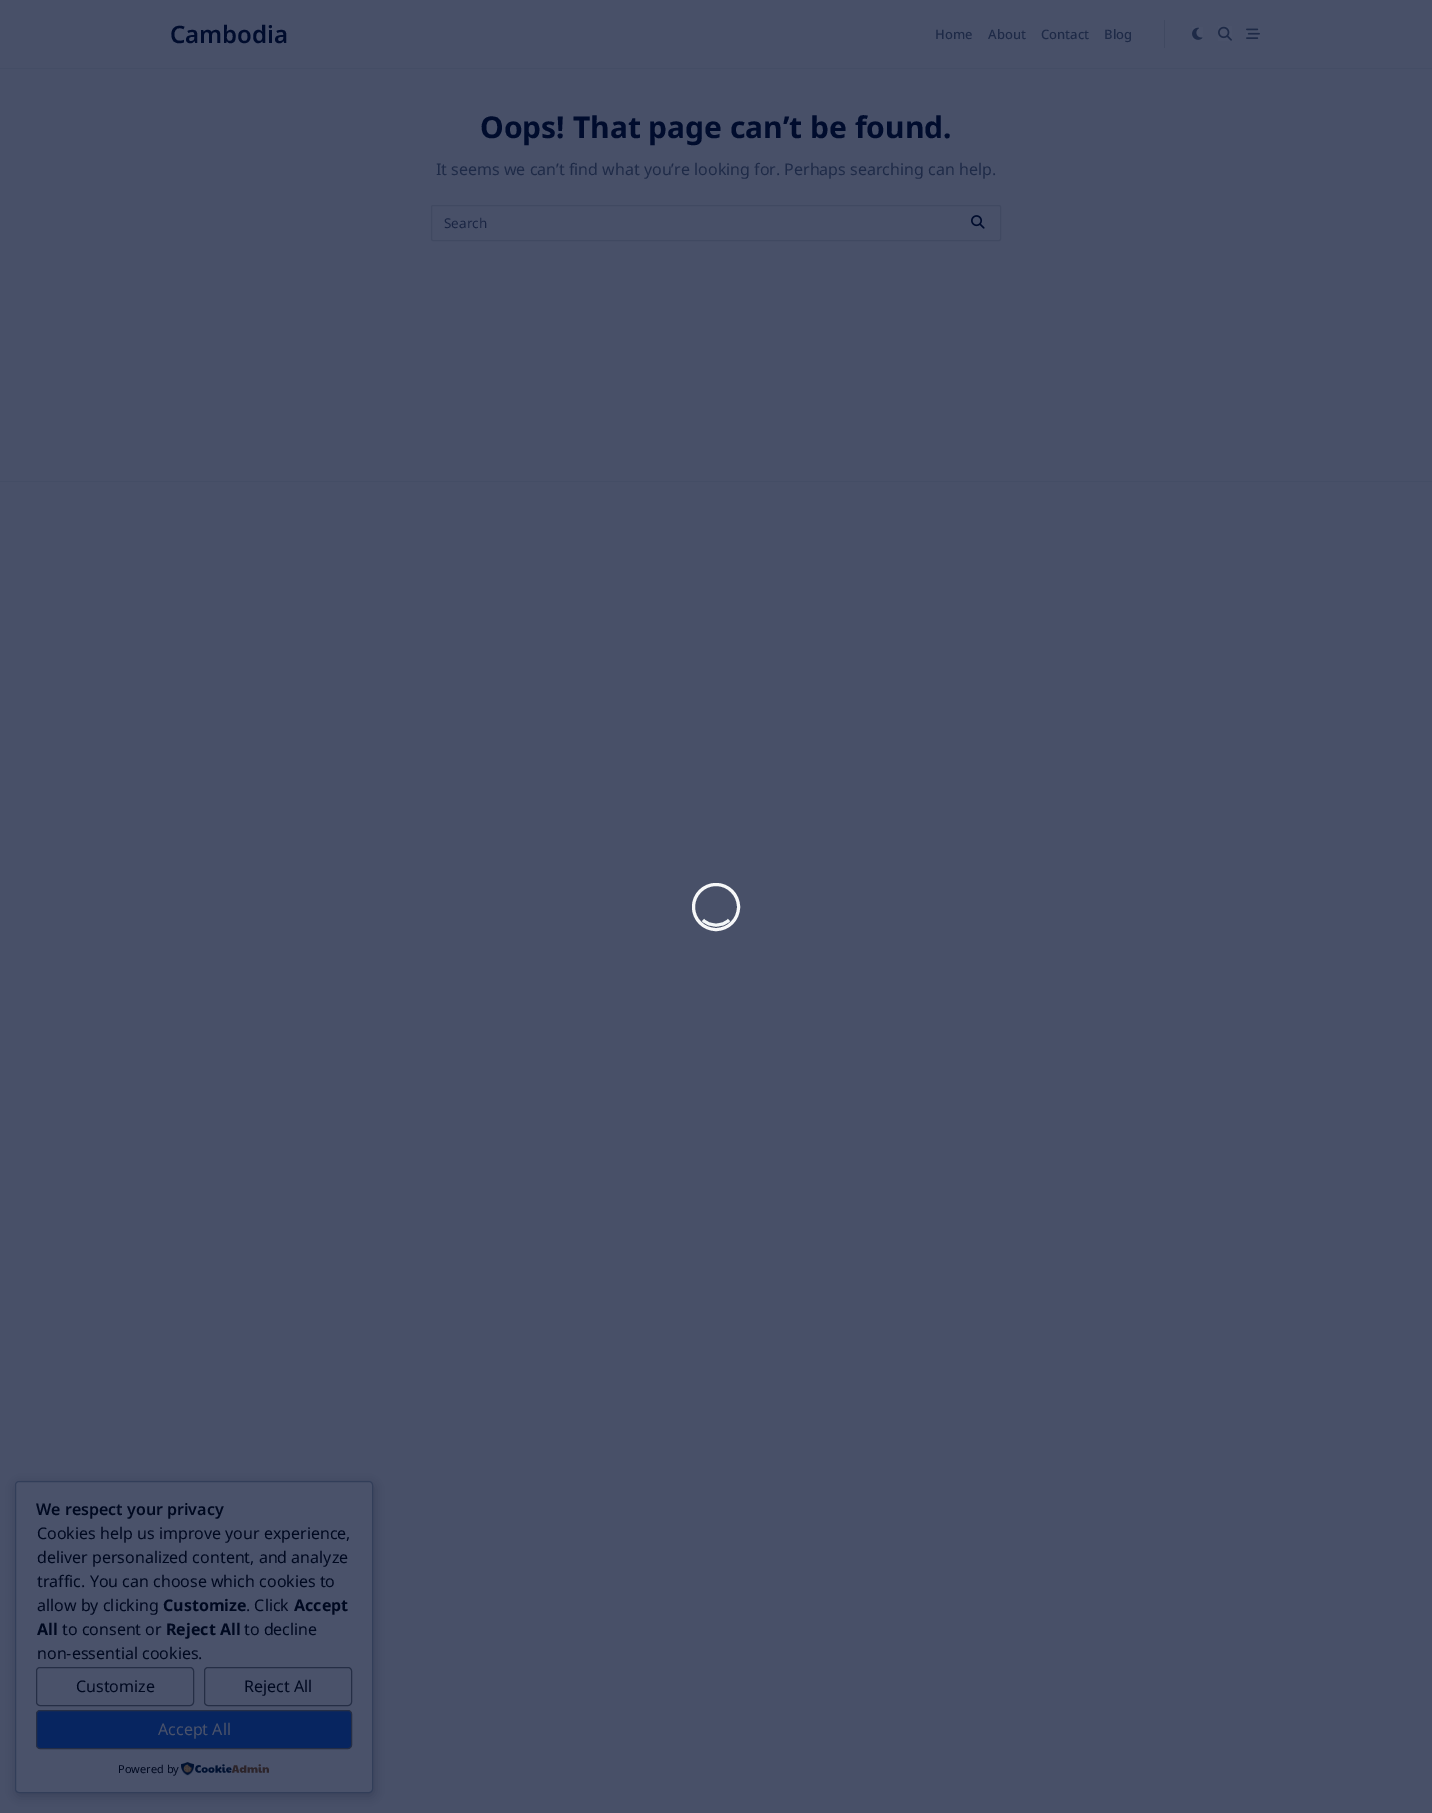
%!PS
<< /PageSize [1432 1813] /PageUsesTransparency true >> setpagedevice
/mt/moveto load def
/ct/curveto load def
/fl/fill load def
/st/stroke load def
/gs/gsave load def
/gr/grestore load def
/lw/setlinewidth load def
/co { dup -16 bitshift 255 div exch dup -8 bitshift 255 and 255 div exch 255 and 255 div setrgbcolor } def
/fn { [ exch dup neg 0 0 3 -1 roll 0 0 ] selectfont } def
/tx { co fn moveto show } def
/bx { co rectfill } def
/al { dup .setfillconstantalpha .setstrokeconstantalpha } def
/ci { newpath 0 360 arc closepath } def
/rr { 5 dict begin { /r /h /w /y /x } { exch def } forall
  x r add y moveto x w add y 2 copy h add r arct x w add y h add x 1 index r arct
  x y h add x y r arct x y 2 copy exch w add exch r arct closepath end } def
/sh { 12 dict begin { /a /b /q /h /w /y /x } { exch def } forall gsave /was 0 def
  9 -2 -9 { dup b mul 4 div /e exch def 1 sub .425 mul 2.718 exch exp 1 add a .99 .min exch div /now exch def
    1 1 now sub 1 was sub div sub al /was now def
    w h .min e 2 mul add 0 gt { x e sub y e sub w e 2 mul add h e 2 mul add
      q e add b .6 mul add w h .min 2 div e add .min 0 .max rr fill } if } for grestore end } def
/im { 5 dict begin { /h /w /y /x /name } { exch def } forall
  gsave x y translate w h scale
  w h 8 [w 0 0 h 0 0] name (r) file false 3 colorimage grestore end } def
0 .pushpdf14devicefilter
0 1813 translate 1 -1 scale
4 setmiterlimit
0 0 1432 1813 16#485068 bx
0 68 1432 1 16#444D65 bx
1164 20 1 28 16#404961 bx
(media/1.raw) 1192 27 11 13 im
(media/2.raw) 1218 26 14 15 im
(media/3.raw) 1246 28 14 11 im
431.5 205.5 569 35 1.5 rr st
(media/4.raw) 971 215 14 14 im
0 481 1432 1 16#444D65 bx
16#F7F8F9 co
3 lw
716 907 22.5 ci st
16#F3F7F8 co
729 920 mt 722 927 710 927 703 920 ct st
16#000920 co
16 1484 358 312 4 5 .2 sh
16#4A526A co
15.5 1481.5 357 311 3.5 rr gs fl gr
16#323E59 co
1 lw
st
16#252E45 co
36.5 1667.5 157 38 3.5 rr st
204.5 1667.5 147 38 3.5 rr st
16#072560 co
36.5 1710.5 315 38 3.5 rr gs fl gr
16#252E45 co
st
(media/5.raw) 181 1762 88 14 im
(Cambodia) 170 43 /NotoSans-SemiBold 24 16#000C2D tx
(Home) 935 39 /NotoSans-Medium 13 16#1E2A47 tx
(About) 988 39 /NotoSans-Medium 13 16#1E2A47 tx
(Contact) 1041 39 /NotoSans-Medium 13 16#1E2A47 tx
(Blog) 1104 39 /NotoSans-Medium 13 16#1E2A47 tx
(Oops! That page can’t be found.) 480 138 /NotoSans-Bold 30 16#000C2D tx
(It seems we can’t find what you’re looking for. Perhaps searching can help.) 436 175 /NotoSans-Regular 16 16#1E2A47 tx
(Search) 444 228 /NotoSans-Regular 13.5 16#192442 tx
(We respect your privacy) 36 1515 /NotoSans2-SemiBold 16 16#000920 tx
(Cookies help us improve your experience,) 37 1539 /NotoSans-Regular 16 16#000920 tx
(deliver personalized content, and analyze) 37 1563 /NotoSans-Regular 16 16#000920 tx
(traffic. You can choose which cookies to) 37 1587 /NotoSans-Regular 16 16#000920 tx
(allow by clicking) 37 1611 /NotoSans-Regular 16 16#000920 tx
(Customize) 163 1611 /NotoSans-Bold 16 16#000920 tx
(. Click) 246 1611 /NotoSans-Regular 16 16#000920 tx
(Accept) 294 1611 /NotoSans-Bold 16 16#000920 tx
(All) 37 1635 /NotoSans-Bold 16 16#000920 tx
(to consent or) 62 1635 /NotoSans-Regular 16 16#000920 tx
(Reject All) 166 1635 /NotoSans-Bold 16 16#000920 tx
(to decline) 244 1635 /NotoSans-Regular 16 16#000920 tx
(non-essential cookies.) 37 1659 /NotoSans-Regular 16 16#000920 tx
(Customize) 76 1692 /NotoSans-Regular 16 16#000920 tx
(Reject All) 244 1692 /NotoSans-Regular 16 16#000920 tx
(Accept All) 158 1735 /NotoSans-Regular 16 16#4A526A tx
(Powered by) 118 1773 /NotoSans-Regular 11 16#000920 tx
.poppdf14devicefilter showpage
